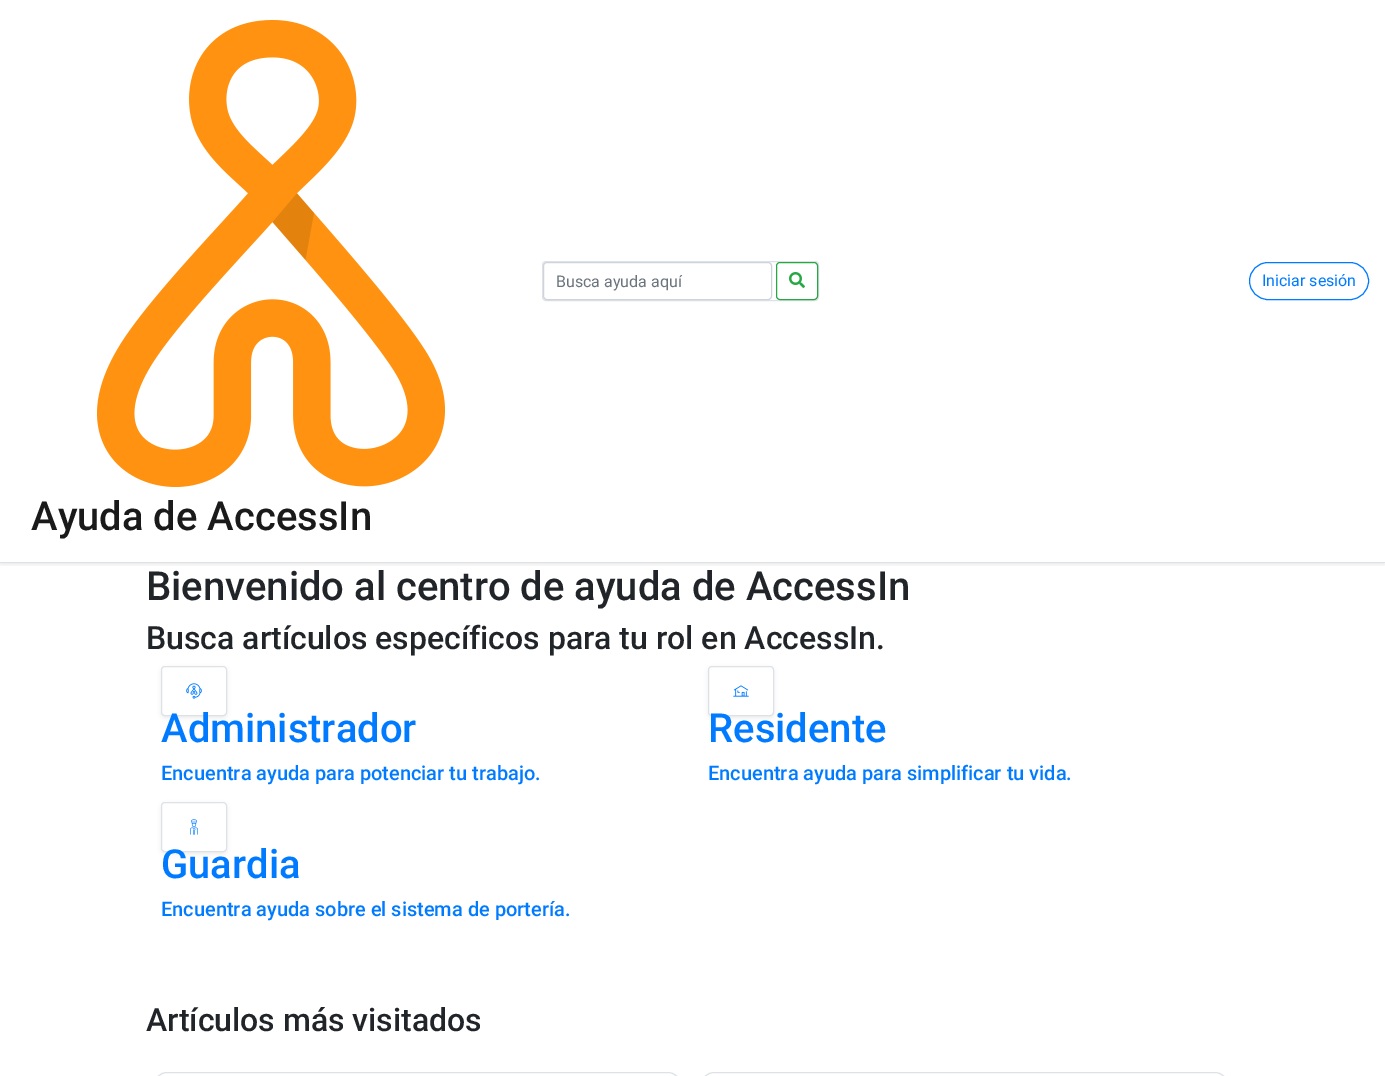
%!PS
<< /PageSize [1385 1076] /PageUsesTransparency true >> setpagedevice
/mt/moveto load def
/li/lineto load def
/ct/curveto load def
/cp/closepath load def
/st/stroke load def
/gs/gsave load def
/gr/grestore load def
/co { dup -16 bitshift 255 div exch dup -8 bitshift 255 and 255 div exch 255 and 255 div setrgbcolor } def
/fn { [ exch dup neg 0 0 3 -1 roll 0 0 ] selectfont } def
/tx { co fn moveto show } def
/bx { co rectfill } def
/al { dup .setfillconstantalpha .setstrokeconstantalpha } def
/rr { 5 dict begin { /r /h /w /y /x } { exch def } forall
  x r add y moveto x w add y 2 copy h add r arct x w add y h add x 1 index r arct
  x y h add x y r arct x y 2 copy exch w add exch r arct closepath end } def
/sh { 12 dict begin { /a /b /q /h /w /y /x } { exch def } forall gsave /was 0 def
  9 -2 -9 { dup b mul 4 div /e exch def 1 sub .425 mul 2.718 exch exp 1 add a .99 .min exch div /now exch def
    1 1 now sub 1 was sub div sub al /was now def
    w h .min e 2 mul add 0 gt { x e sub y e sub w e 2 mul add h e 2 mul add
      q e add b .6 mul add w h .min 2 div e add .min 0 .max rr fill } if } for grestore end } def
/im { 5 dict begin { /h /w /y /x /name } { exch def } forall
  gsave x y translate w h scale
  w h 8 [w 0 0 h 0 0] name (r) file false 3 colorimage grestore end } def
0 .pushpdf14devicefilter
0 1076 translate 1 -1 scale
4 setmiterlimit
0 0 1385 1076 16#FFFFFF bx
gs
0 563 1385 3 rectclip
16#000000 co
0 2 1385 563 0 2 .07 sh
gr
0 562 1385 1 16#DEE2E6 bx
542.5 261.5 276 39 3.5 rr st
16#CED4DA co
543.5 262.5 228 37 3.5 rr st
16#28A745 co
776.5 262.5 41 37 3.5 rr st
(media/1.raw) 789 272 16 16 im
16#007BFF co
1249.5 262.5 119 37 18.5 rr st
(media/2.raw) 97 20 348 467 im
gs
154 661 mt 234 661 li 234 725 li 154 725 li cp 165 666 mt 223 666 li 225 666 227 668 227 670 ct 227 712 li 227 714 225 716 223 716 ct 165 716 li 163 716 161 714 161 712 ct 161 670 li 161 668 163 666 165 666 ct cp eoclip newpath
16#000000 co
161 668 66 50 4 2 .07 sh
gr
16#DEE2E6 co
161.5 666.5 65 49 3.5 rr st
(media/3.raw) 186 683 16 16 im
gs
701 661 mt 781 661 li 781 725 li 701 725 li cp 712 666 mt 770 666 li 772 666 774 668 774 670 ct 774 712 li 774 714 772 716 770 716 ct 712 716 li 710 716 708 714 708 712 ct 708 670 li 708 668 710 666 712 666 ct cp eoclip newpath
16#000000 co
708 668 66 50 4 2 .07 sh
gr
708.5 666.5 65 49 3.5 rr st
(media/4.raw) 733 685 16 12 im
gs
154 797 mt 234 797 li 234 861 li 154 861 li cp 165 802 mt 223 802 li 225 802 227 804 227 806 ct 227 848 li 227 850 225 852 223 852 ct 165 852 li 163 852 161 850 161 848 ct 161 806 li 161 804 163 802 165 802 ct cp eoclip newpath
16#000000 co
161 804 66 50 4 2 .07 sh
gr
161.5 802.5 65 49 3.5 rr st
(media/5.raw) 190 819 8 16 im
154.5 1072.5 526 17 12.5 rr st
701.5 1072.5 526 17 12.5 rr st
(Busca ayuda aquí) 556 287 /Roboto-Regular 16 16#6C757D tx
(Iniciar sesión) 1262 286 /Roboto-Regular 16 16#007BFF tx
(Ayuda de AccessIn) 31 530 /Roboto-Medium 40 16#1A1A1A tx
(Bienvenido al centro de ayuda de AccessIn) 146 600 /Roboto-Medium 40 16#212529 tx
(Busca artículos específicos para tu rol en AccessIn.) 146 649 /Roboto-Medium 32 16#212529 tx
(Administrador) 161 742 /Roboto-Medium 40 16#007BFF tx
(Encuentra ayuda para potenciar tu trabajo.) 161 780 /Roboto-Medium 20 16#007BFF tx
(Residente) 708 742 /Roboto-Medium 40 16#007BFF tx
(Encuentra ayuda para simplificar tu vida.) 708 780 /Roboto-Medium 20 16#007BFF tx
(Guardia) 161 878 /Roboto-Medium 40 16#007BFF tx
(Encuentra ayuda sobre el sistema de portería.) 161 916 /Roboto-Medium 20 16#007BFF tx
(Artículos más visitados) 146 1031 /Roboto-Medium 32 16#212529 tx
.poppdf14devicefilter showpage
